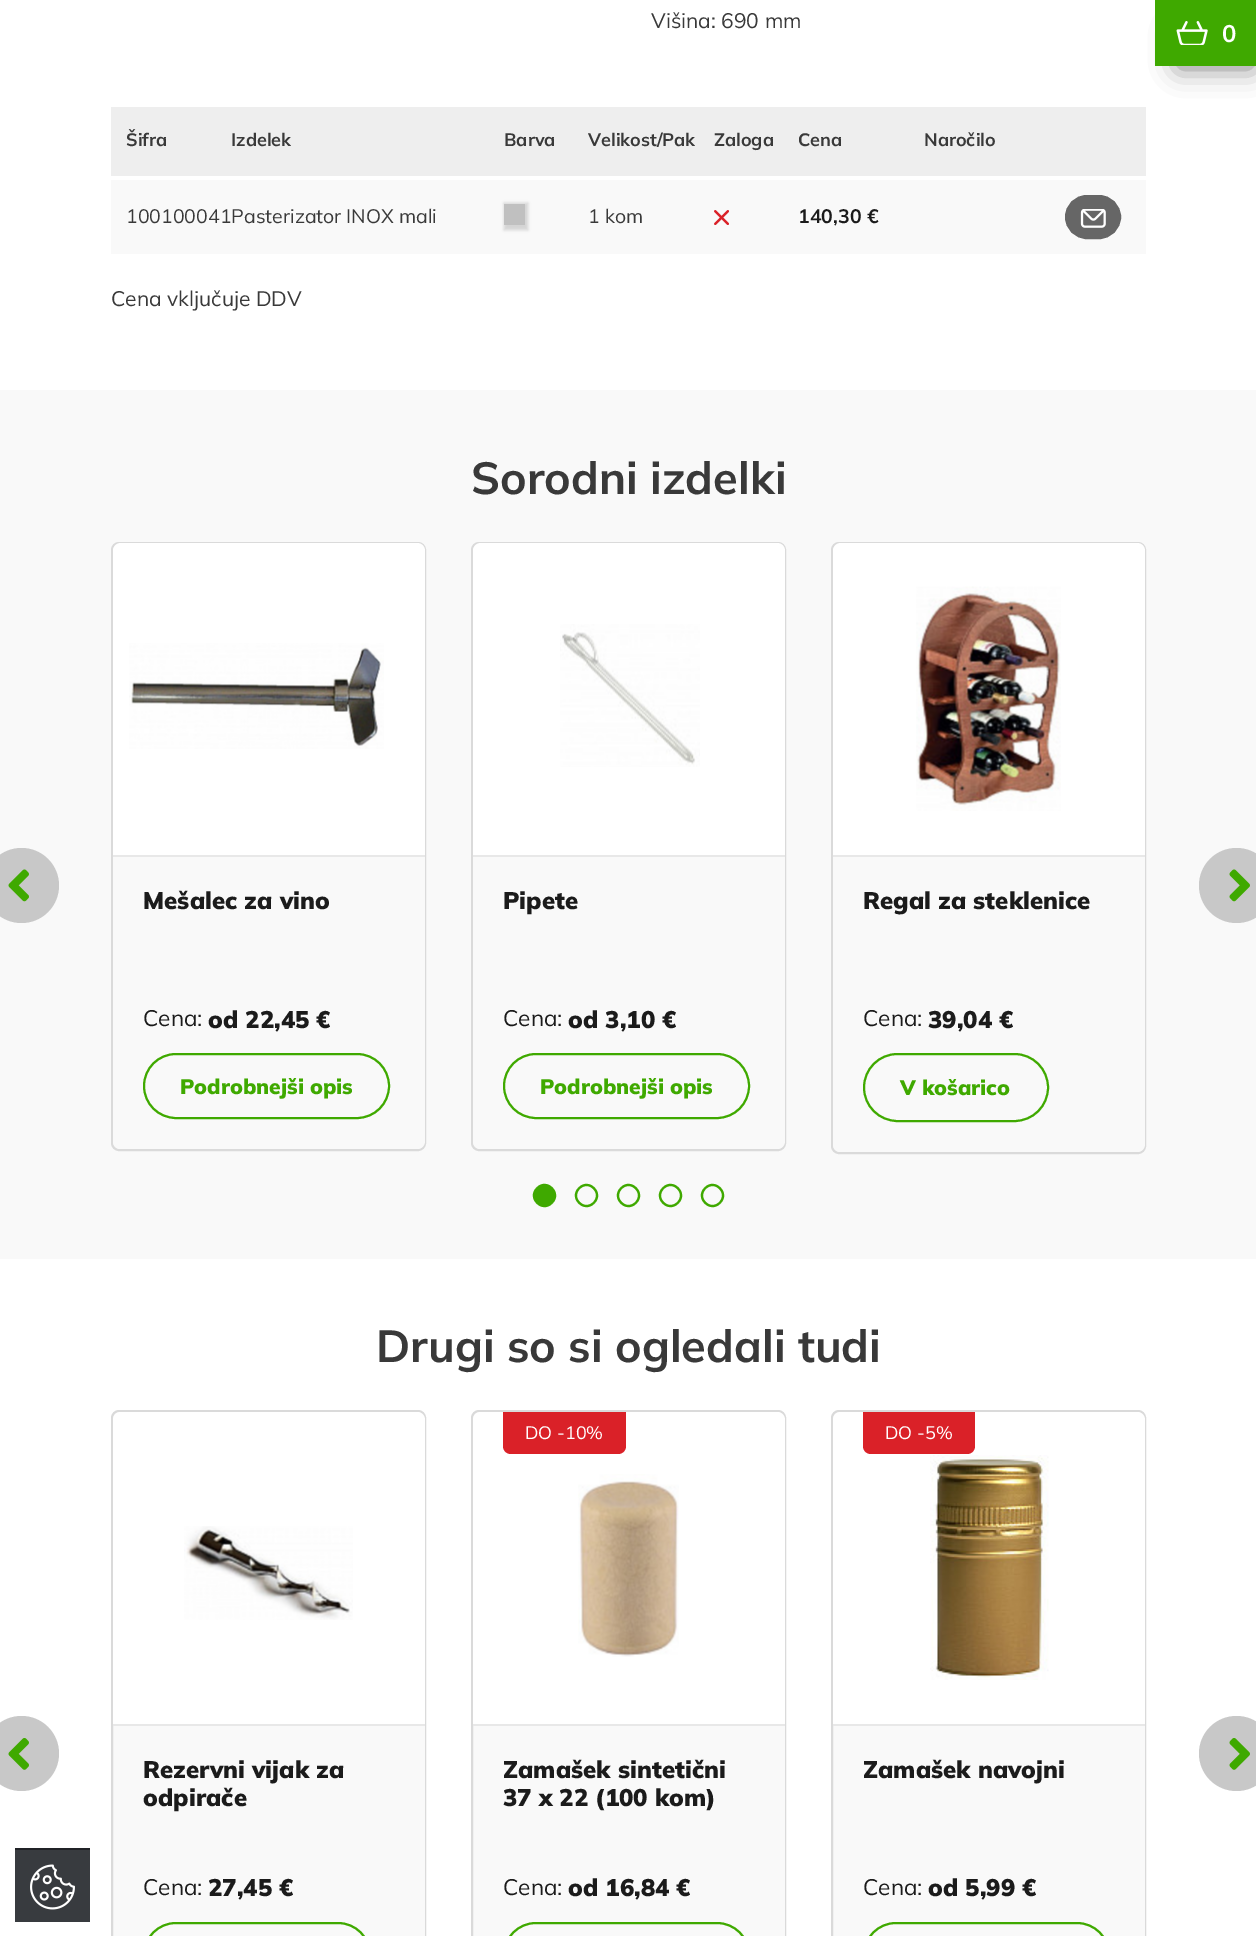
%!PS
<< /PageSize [1256 1936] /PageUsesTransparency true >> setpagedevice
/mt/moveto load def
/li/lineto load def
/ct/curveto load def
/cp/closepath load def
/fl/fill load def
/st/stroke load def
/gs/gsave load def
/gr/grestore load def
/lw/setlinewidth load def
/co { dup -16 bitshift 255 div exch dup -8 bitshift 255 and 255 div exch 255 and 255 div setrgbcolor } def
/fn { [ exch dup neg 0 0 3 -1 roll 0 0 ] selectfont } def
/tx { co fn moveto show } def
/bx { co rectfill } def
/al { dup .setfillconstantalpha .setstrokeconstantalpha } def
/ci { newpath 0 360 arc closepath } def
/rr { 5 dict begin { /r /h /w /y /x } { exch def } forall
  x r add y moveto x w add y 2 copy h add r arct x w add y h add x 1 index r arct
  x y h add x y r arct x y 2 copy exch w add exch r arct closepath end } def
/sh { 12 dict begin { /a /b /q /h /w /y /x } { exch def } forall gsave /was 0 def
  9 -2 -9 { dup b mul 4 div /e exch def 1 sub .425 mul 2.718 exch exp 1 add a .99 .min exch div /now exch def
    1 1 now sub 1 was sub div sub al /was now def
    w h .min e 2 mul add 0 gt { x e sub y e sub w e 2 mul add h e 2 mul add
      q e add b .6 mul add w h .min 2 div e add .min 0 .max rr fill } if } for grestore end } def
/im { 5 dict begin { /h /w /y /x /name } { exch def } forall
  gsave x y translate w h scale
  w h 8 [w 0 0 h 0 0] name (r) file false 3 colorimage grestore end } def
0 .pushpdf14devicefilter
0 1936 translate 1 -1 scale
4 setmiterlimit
0 0 1256 1936 16#FFFFFF bx
111 107 1035 69 16#EEEEEE bx
111 180 1035 74 16#F9F9F9 bx
16#000000 co
504 203 24 27 0 1.5 .15 sh
504 204 21 21 16#C0C0C0 bx
(media/1.raw) 714 210 15 15 im
16#666666 co
1066 196 54 42 21 rr gs fl gr
2 lw
st
(media/2.raw) 1080 209 26 19 im
0 390 1256 869 16#F9F9F9 bx
16#C8C8C8 co
21.5 885.5 37.5 ci fl
(media/3.raw) 8 869 21 33 im
16#DADADA co
112 543 313 607 7 rr st
16#FFFFFF co
121 543 mt 417 543 li 421.5 543 425 546.5 425 551 ct 425 857 li 113 857 li 113 551 li 113 546.5 116.5 543 121 543 ct cp fl
113 855 312 2 16#E8E8E8 bx
(media/4.raw) 129 643 255 106 im
16#F9F9F9 co
113 857 mt 425 857 li 425 1141 li 425 1145.5 421.5 1149 417 1149 ct 121 1149 li 116.5 1149 113 1145.5 113 1141 ct cp fl
16#3FA900 co
144 1054 245 64 32 rr st
16#DADADA co
472 543 313 607 7 rr st
16#FFFFFF co
481 543 mt 777 543 li 781.5 543 785 546.5 785 551 ct 785 857 li 473 857 li 473 551 li 473 546.5 476.5 543 481 543 ct cp fl
473 855 312 2 16#E8E8E8 bx
(media/5.raw) 560 624 140 143 im
16#F9F9F9 co
473 857 mt 785 857 li 785 1141 li 785 1145.5 781.5 1149 777 1149 ct 481 1149 li 476.5 1149 473 1145.5 473 1141 ct cp fl
16#3FA900 co
504 1054 245 64 32 rr st
16#DADADA co
832 543 313 610 7 rr st
16#FFFFFF co
841 543 mt 1137 543 li 1141.5 543 1145 546.5 1145 551 ct 1145 857 li 833 857 li 833 551 li 833 546.5 836.5 543 841 543 ct cp fl
833 855 312 2 16#E8E8E8 bx
(media/6.raw) 916 586 145 225 im
16#F9F9F9 co
833 857 mt 1145 857 li 1145 1144 li 1145 1148.5 1141.5 1152 1137 1152 ct 841 1152 li 836.5 1152 833 1148.5 833 1144 ct cp fl
16#3FA900 co
864 1054 184 67 33.5 rr st
16#C8C8C8 co
1236.5 885.5 37.5 ci fl
(media/7.raw) 1229 869 21 33 im
16#3FA900 co
536.5 1187.5 mt 547 1176.5 563.5 1193 552.5 1203.5 ct 542 1214.5 525.5 1198 536.5 1187.5 ct cp fl
578.5 1187.5 mt 589 1176.5 605.5 1193 594.5 1203.5 ct 584 1214.5 567.5 1198 578.5 1187.5 ct cp 580 1202 mt 588.5 1211 602 1197.5 593 1189 ct 584.5 1180 571 1193.5 580 1202 ct cp fl
620.5 1187.5 mt 631 1176.5 647.5 1193 636.5 1203.5 ct 626 1214.5 609.5 1198 620.5 1187.5 ct cp 622 1202 mt 630.5 1211 644 1197.5 635 1189 ct 626.5 1180 613 1193.5 622 1202 ct cp fl
662.5 1187.5 mt 673 1176.5 689.5 1193 678.5 1203.5 ct 668 1214.5 651.5 1198 662.5 1187.5 ct cp 664 1202 mt 672.5 1211 686 1197.5 677 1189 ct 668.5 1180 655 1193.5 664 1202 ct cp fl
704.5 1187.5 mt 715 1176.5 731.5 1193 720.5 1203.5 ct 710 1214.5 693.5 1198 704.5 1187.5 ct cp 706 1202 mt 714.5 1211 728 1197.5 719 1189 ct 710.5 1180 697 1193.5 706 1202 ct cp fl
16#C8C8C8 co
21.5 1753.5 37.5 ci fl
(media/8.raw) 8 1738 21 32 im
16#F9F9F9 co
112 1411 313 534 7 rr gs fl gr
16#DADADA co
st
16#FFFFFF co
121 1412 mt 417 1412 li 421.5 1412 425 1415.5 425 1420 ct 425 1725 li 113 1725 li 113 1420 li 113 1415.5 116.5 1412 121 1412 ct cp fl
113 1724 312 2 16#E8E8E8 bx
(media/9.raw) 184 1526 169 94 im
424 1726 1 210 16#F9F9F9 bx
16#3FA900 co
144 1923 226 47 32 rr st
16#F9F9F9 co
472 1411 313 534 7 rr gs fl gr
16#DADADA co
st
16#FFFFFF co
481 1412 mt 777 1412 li 781.5 1412 785 1415.5 785 1420 ct 785 1725 li 473 1725 li 473 1420 li 473 1415.5 476.5 1412 481 1412 ct cp fl
473 1724 312 2 16#E8E8E8 bx
(media/10.raw) 578 1474 101 183 im
16#DA2128 co
503 1412 mt 626 1412 li 626 1446 li 626 1450.5 622.5 1454 618 1454 ct 511 1454 li 506.5 1454 503 1450.5 503 1446 ct cp fl
784 1726 1 210 16#F9F9F9 bx
16#3FA900 co
504 1923 245 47 32 rr st
16#F9F9F9 co
832 1411 313 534 7 rr gs fl gr
16#DADADA co
st
16#FFFFFF co
841 1412 mt 1137 1412 li 1141.5 1412 1145 1415.5 1145 1420 ct 1145 1725 li 833 1725 li 833 1420 li 833 1415.5 836.5 1412 841 1412 ct cp fl
833 1724 312 2 16#E8E8E8 bx
(media/11.raw) 930 1455 119 225 im
16#DA2128 co
863 1412 mt 975 1412 li 975 1446 li 975 1450.5 971.5 1454 967 1454 ct 871 1454 li 866.5 1454 863 1450.5 863 1446 ct cp fl
1144 1726 1 210 16#F9F9F9 bx
16#3FA900 co
864 1923 245 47 32 rr st
16#C8C8C8 co
1236.5 1753.5 37.5 ci fl
(media/12.raw) 1229 1738 21 32 im
16#000000 co
1178 29 75 39 0 13.5 .5 sh
1155 0 101 66 16#3FA900 bx
(media/13.raw) 1176 21 32 24 im
15 1848 75 2 16#202226 bx
15 1850 75 72 16#383B3F bx
(media/14.raw) 30 1864 45 46 im
(Višina: 690 mm) 651 28 /Mulish-Regular 21 16#393939 tx
(Šifra) 126 146 /Mulish-Bold 18 16#393939 tx
(Izdelek) 231 146 /Mulish-Bold 18 16#393939 tx
(Barva) 504 146 /Mulish-Bold 18 16#393939 tx
(Velikost/Pak) 588 146 /Mulish-Bold 18 16#393939 tx
(Zaloga) 714 146 /Mulish-Bold 18 16#393939 tx
(Cena) 798 146 /Mulish-Bold 18 16#393939 tx
(Naročilo) 924 146 /Mulish-Bold 18 16#393939 tx
(100100041Pasterizator INOX mali) 126 223 /Mulish-Regular 19.5 16#393939 tx
(1 kom) 588 223 /Mulish-Regular 19.5 16#393939 tx
(140,30 €) 798 223 /Mulish-Bold 19.5 16#1B1B1B tx
(Cena vključuje DDV) 111 306 /Mulish-Regular 21 16#393939 tx
(Sorodni izdelki) 471 494 /Mulish-Bold 45 16#393939 tx
(Mešalec za vino) 143 909 /Mulish-Black 24 16#1B1B1B tx
(Cena:) 143 1026 /Mulish-Regular 22.5 16#1B1B1B tx
(od 22,45 €) 208 1028 /Mulish-Black 24 16#1B1B1B tx
(Podrobnejši opis) 180 1094 /Mulish-Black 21 16#3FA900 tx
(Pipete) 503 909 /Mulish-Black 24 16#1B1B1B tx
(Cena:) 503 1026 /Mulish-Regular 22.5 16#1B1B1B tx
(od 3,10 €) 568 1028 /Mulish-Black 24 16#1B1B1B tx
(Podrobnejši opis) 540 1094 /Mulish-Black 21 16#3FA900 tx
(Regal za steklenice) 863 909 /Mulish-Black 24 16#1B1B1B tx
(Cena:) 863 1026 /Mulish-Regular 22.5 16#1B1B1B tx
(39,04 €) 928 1028 /Mulish-Black 24 16#1B1B1B tx
(V košarico) 900 1095 /Mulish-Black 21 16#3FA900 tx
(Drugi so si ogledali tudi) 376 1362 /Mulish-Bold 45 16#393939 tx
(Rezervni vijak za) 143 1778 /Mulish-Black 24 16#1B1B1B tx
(odpirače) 143 1806 /Mulish-Black 24 16#1B1B1B tx
(Cena:) 143 1895 /Mulish-Regular 22.5 16#1B1B1B tx
(27,45 €) 208 1896 /Mulish-Black 24 16#1B1B1B tx
(DO -10%) 525 1439 /Mulish-Regular 18 16#FFFFFF tx
(Zamašek sintetični) 503 1778 /Mulish-Black 24 16#1B1B1B tx
(37 x 22 \(100 kom\)) 503 1806 /Mulish-Black 24 16#1B1B1B tx
(Cena:) 503 1895 /Mulish-Regular 22.5 16#1B1B1B tx
(od 16,84 €) 568 1896 /Mulish-Black 24 16#1B1B1B tx
(DO -5%) 885 1439 /Mulish-Regular 18 16#FFFFFF tx
(Zamašek navojni) 863 1778 /Mulish-Black 24 16#1B1B1B tx
(Cena:) 863 1895 /Mulish-Regular 22.5 16#1B1B1B tx
(od 5,99 €) 928 1896 /Mulish-Black 24 16#1B1B1B tx
(0) 1222 42 /Mulish-Bold 24 16#FFFFFF tx
.poppdf14devicefilter showpage
